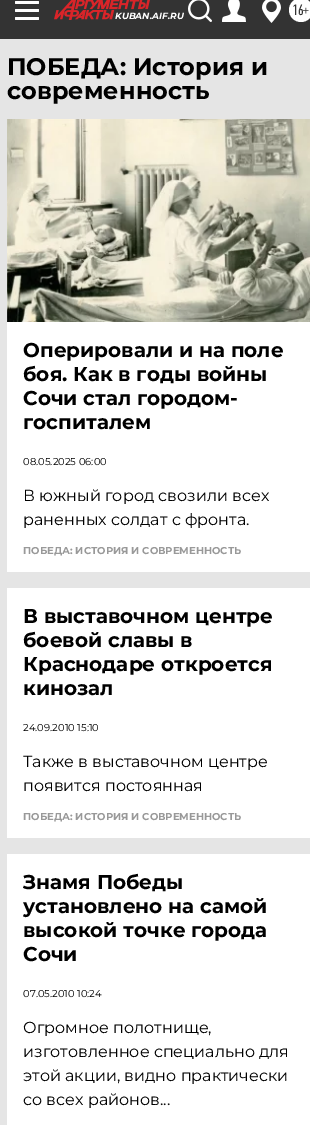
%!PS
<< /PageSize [310 1125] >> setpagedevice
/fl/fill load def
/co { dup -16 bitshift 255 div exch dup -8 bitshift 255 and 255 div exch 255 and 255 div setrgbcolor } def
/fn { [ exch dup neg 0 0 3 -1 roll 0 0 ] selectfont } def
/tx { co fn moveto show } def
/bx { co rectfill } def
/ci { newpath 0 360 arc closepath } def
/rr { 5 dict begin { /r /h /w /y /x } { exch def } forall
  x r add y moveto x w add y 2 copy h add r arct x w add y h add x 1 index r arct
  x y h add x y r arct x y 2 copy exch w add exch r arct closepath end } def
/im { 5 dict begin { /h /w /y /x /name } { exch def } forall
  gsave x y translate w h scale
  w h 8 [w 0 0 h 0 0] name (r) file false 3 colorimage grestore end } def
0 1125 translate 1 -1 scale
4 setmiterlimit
0 0 310 1125 16#E5E5E5 bx
0 0 310 39 16#333333 bx
16#FFFFFF co
15 1 24 3 1 rr fl
15 9 24 3 1 rr fl
15 17 24 3 1 rr fl
(media/1.raw) 54 0 96 20 im
(media/2.raw) 188 0 24 22 im
(media/3.raw) 222 0 24 22 im
(media/4.raw) 262 0 19 23 im
301 10 12 ci fl
7 322 303 250 16#FFFFFF bx
(media/5.raw) 7 119 303 203 im
7 588 303 250 16#FFFFFF bx
7 854 303 271 16#FFFFFF bx
(KUBAN.AIF.RU) 115 19 /Montserrat-BoldItalic 9 16#FFFFFF tx
(16+) 292 15 /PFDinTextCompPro-Regular 15 16#333333 tx
(ПОБЕДА: История и) 7 75 /Montserrat-Bold 24 16#000000 tx
(современность) 7 99 /Montserrat-Bold 24 16#000000 tx
(Оперировали и на поле) 23 357 /Montserrat-Bold 20 16#000000 tx
(боя. Как в годы войны) 23 381 /Montserrat-Bold 20 16#000000 tx
(Сочи стал городом-) 23 405 /Montserrat-Bold 20 16#000000 tx
(госпиталем) 23 429 /Montserrat-Bold 20 16#000000 tx
(08.05.2025 06:00) 23 465 /Montserrat-Regular 10 16#000000 tx
(В южный город свозили всех) 23 501 /Montserrat-Regular 16 16#000000 tx
(раненных солдат с фронта.) 23 525 /Montserrat-Regular 16 16#000000 tx
(ПОБЕДА: ИСТОРИЯ И СОВРЕМЕННОСТЬ) 23 554 /Montserrat-Bold 10 16#999999 tx
(В выставочном центре) 23 623 /Montserrat-Bold 20 16#000000 tx
(боевой славы в) 23 647 /Montserrat-Bold 20 16#000000 tx
(Краснодаре откроется) 23 671 /Montserrat-Bold 20 16#000000 tx
(кинозал) 23 695 /Montserrat-Bold 20 16#000000 tx
(24.09.2010 15:10) 23 731 /Montserrat-Regular 10 16#000000 tx
(Также в выставочном центре) 23 767 /Montserrat-Regular 16 16#000000 tx
(появится постоянная) 23 791 /Montserrat-Regular 16 16#000000 tx
(ПОБЕДА: ИСТОРИЯ И СОВРЕМЕННОСТЬ) 23 820 /Montserrat-Bold 10 16#999999 tx
(Знамя Победы) 23 889 /Montserrat-Bold 20 16#000000 tx
(установлено на самой) 23 913 /Montserrat-Bold 20 16#000000 tx
(высокой точке города) 23 937 /Montserrat-Bold 20 16#000000 tx
(Сочи) 23 961 /Montserrat-Bold 20 16#000000 tx
(07.05.2010 10:24) 23 997 /Montserrat-Regular 10 16#000000 tx
(Огромное полотнище,) 23 1033 /Montserrat-Regular 16 16#000000 tx
(изготовленное специально для) 23 1057 /Montserrat-Regular 16 16#000000 tx
(этой акции, видно практически) 23 1081 /Montserrat-Regular 16 16#000000 tx
(со всех районов...) 23 1105 /Montserrat-Regular 16 16#000000 tx
showpage
